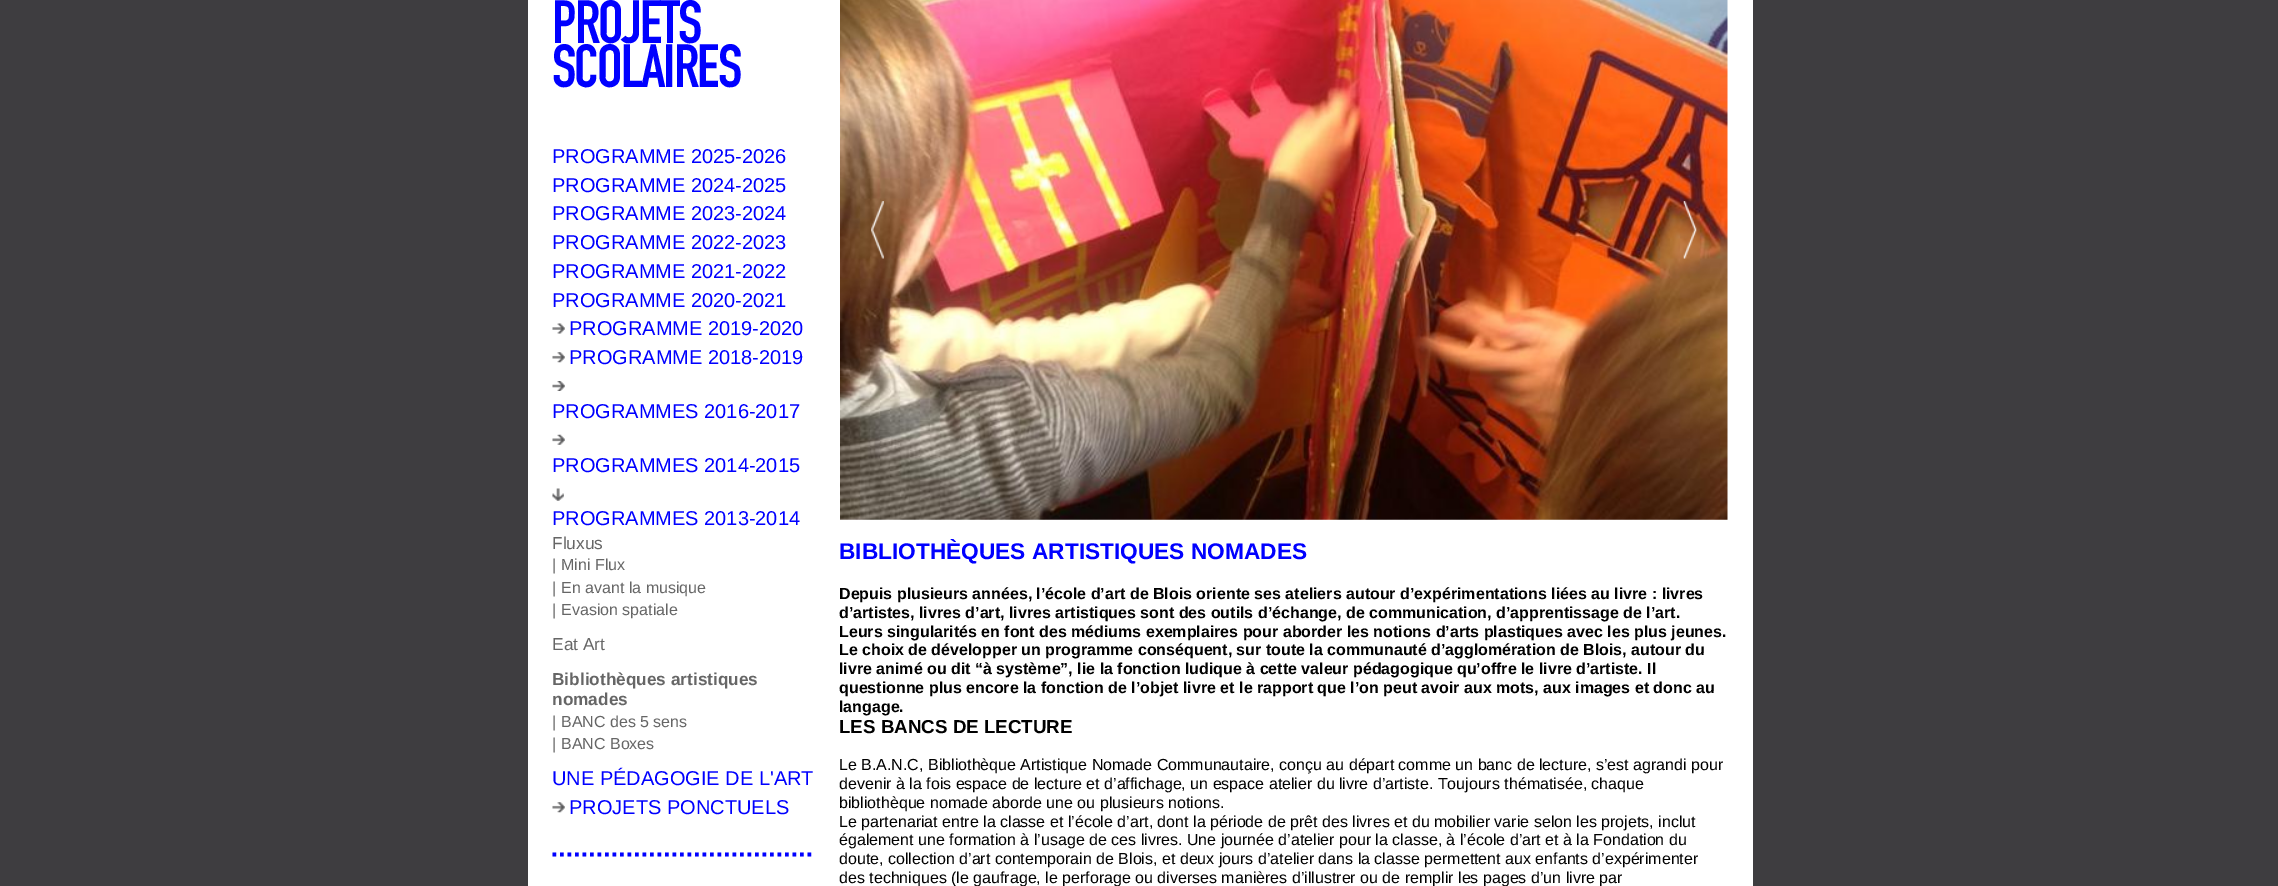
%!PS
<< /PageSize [2278 886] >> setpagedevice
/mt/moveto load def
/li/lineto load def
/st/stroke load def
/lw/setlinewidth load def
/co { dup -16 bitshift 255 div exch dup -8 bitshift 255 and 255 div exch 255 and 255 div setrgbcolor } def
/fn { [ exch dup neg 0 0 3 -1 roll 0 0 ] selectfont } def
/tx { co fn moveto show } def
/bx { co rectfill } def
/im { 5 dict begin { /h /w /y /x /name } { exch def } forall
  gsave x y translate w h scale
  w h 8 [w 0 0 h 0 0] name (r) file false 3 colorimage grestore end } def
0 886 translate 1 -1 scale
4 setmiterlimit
0 0 2278 886 16#3E3D40 bx
528 0 1225 886 16#FFFFFF bx
(media/1.raw) 552 323 13 11 im
(media/2.raw) 552 352 13 11 im
(media/3.raw) 552 381 13 10 im
(media/4.raw) 552 434 13 11 im
(media/5.raw) 552 488 12 13 im
(media/2.raw) 552 802 13 11 im
16#0000FF co
3.8 lw
[3.75 3.75] 0 setdash
552.5 854.5 mt 815 854.5 li st
(media/6.raw) 840 0 888 520 im
(media/7.raw) 871 201 13 58 im
(media/8.raw) 1683 201 14 58 im
/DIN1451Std-Regular 60 fn
552 43 mt -1.9 0 (PROJETS) ashow
552 87 mt -1.9 0 (SCOLAIRES) ashow
(PROGRAMME 2025-2026) 552 163 /LiberationSans-Regular 20 16#0000FF tx
(PROGRAMME 2024-2025) 552 192 /LiberationSans-Regular 20 16#0000FF tx
(PROGRAMME 2023-2024) 552 220 /LiberationSans-Regular 20 16#0000FF tx
(PROGRAMME 2022-2023) 552 249 /LiberationSans-Regular 20 16#0000FF tx
(PROGRAMME 2021-2022) 552 278 /LiberationSans-Regular 20 16#0000FF tx
(PROGRAMME 2020-2021) 552 307 /LiberationSans-Regular 20 16#0000FF tx
(PROGRAMME 2019-2020) 569 335 /LiberationSans-Regular 20 16#0000FF tx
(PROGRAMME 2018-2019) 569 364 /LiberationSans-Regular 20 16#0000FF tx
(PROGRAMMES 2016-2017) 552 418 /LiberationSans-Regular 20 16#0000FF tx
(PROGRAMMES 2014-2015) 552 472 /LiberationSans-Regular 20 16#0000FF tx
(PROGRAMMES 2013-2014) 552 525 /LiberationSans-Regular 20 16#0000FF tx
(Fluxus) 552 549 /LiberationSans-Regular 17.25 16#666666 tx
(|) 552 570 /LiberationSans-Regular 16 16#666666 tx
(Mini Flux) 561 570 /LiberationSans-Regular 16 16#666666 tx
(|) 552 593 /LiberationSans-Regular 16 16#666666 tx
(En avant la musique) 561 593 /LiberationSans-Regular 16 16#666666 tx
(|) 552 615 /LiberationSans-Regular 16 16#666666 tx
(Evasion spatiale) 561 615 /LiberationSans-Regular 16 16#666666 tx
(Eat Art) 552 650 /LiberationSans-Regular 17.25 16#666666 tx
(Bibliothèques artistiques) 552 685 /LiberationSans-Bold 17.25 16#666666 tx
(nomades) 552 705 /LiberationSans-Bold 17.25 16#666666 tx
(|) 552 727 /LiberationSans-Regular 16 16#666666 tx
(BANC des 5 sens) 561 727 /LiberationSans-Regular 16 16#666666 tx
(|) 552 749 /LiberationSans-Regular 16 16#666666 tx
(BANC Boxes) 561 749 /LiberationSans-Regular 16 16#666666 tx
(UNE PÉDAGOGIE DE L'ART) 552 785 /LiberationSans-Regular 20 16#0000FF tx
(PROJETS PONCTUELS) 569 814 /LiberationSans-Regular 20 16#0000FF tx
(BIBLIOTHÈQUES ARTISTIQUES NOMADES) 839 559 /LiberationSans-Bold 22.7 16#0000FF tx
(Depuis plusieurs années, l’école d’art de Blois oriente ses ateliers autour d’expérimentations liées au livre : livres) 839 599 /LiberationSans-Bold 16 16#000000 tx
(d’artistes, livres d’art, livres artistiques sont des outils d’échange, de communication, d’apprentissage de l’art.) 839 618 /LiberationSans-Bold 16 16#000000 tx
(Leurs singularités en font des médiums exemplaires pour aborder les notions d’arts plastiques avec les plus jeunes.) 839 637 /LiberationSans-Bold 16 16#000000 tx
(Le choix de développer un programme conséquent, sur toute la communauté d’agglomération de Blois, autour du) 839 655 /LiberationSans-Bold 16 16#000000 tx
(livre animé ou dit “à système”, lie la fonction ludique à cette valeur pédagogique qu’offre le livre d’artiste. Il) 839 674 /LiberationSans-Bold 16 16#000000 tx
(questionne plus encore la fonction de l’objet livre et le rapport que l’on peut avoir aux mots, aux images et donc au) 839 693 /LiberationSans-Bold 16 16#000000 tx
(langage.) 839 712 /LiberationSans-Bold 16 16#000000 tx
(LES BANCS DE LECTURE) 839 733 /LiberationSans-Bold 18.75 16#000000 tx
(Le B.A.N.C, Bibliothèque Artistique Nomade Communautaire, conçu au départ comme un banc de lecture, s’est agrandi pour) 839 770 /LiberationSans-Regular 16 16#000000 tx
(devenir à la fois espace de lecture et d’affichage, un espace atelier du livre d’artiste. Toujours thématisée, chaque) 839 789 /LiberationSans-Regular 16 16#000000 tx
(bibliothèque nomade aborde une ou plusieurs notions.) 839 808 /LiberationSans-Regular 16 16#000000 tx
(Le partenariat entre la classe et l’école d’art, dont la période de prêt des livres et du mobilier varie selon les projets, inclut) 839 827 /LiberationSans-Regular 16 16#000000 tx
(également une formation à l’usage de ces livres. Une journée d’atelier pour la classe, à l’école d’art et à la Fondation du) 839 845 /LiberationSans-Regular 16 16#000000 tx
(doute, collection d’art contemporain de Blois, et deux jours d’atelier dans la classe permettent aux enfants d’expérimenter) 839 864 /LiberationSans-Regular 16 16#000000 tx
(des techniques \(le gaufrage, le perforage ou diverses manières d’illustrer ou de remplir les pages d’un livre par) 839 883 /LiberationSans-Regular 16 16#000000 tx
showpage
